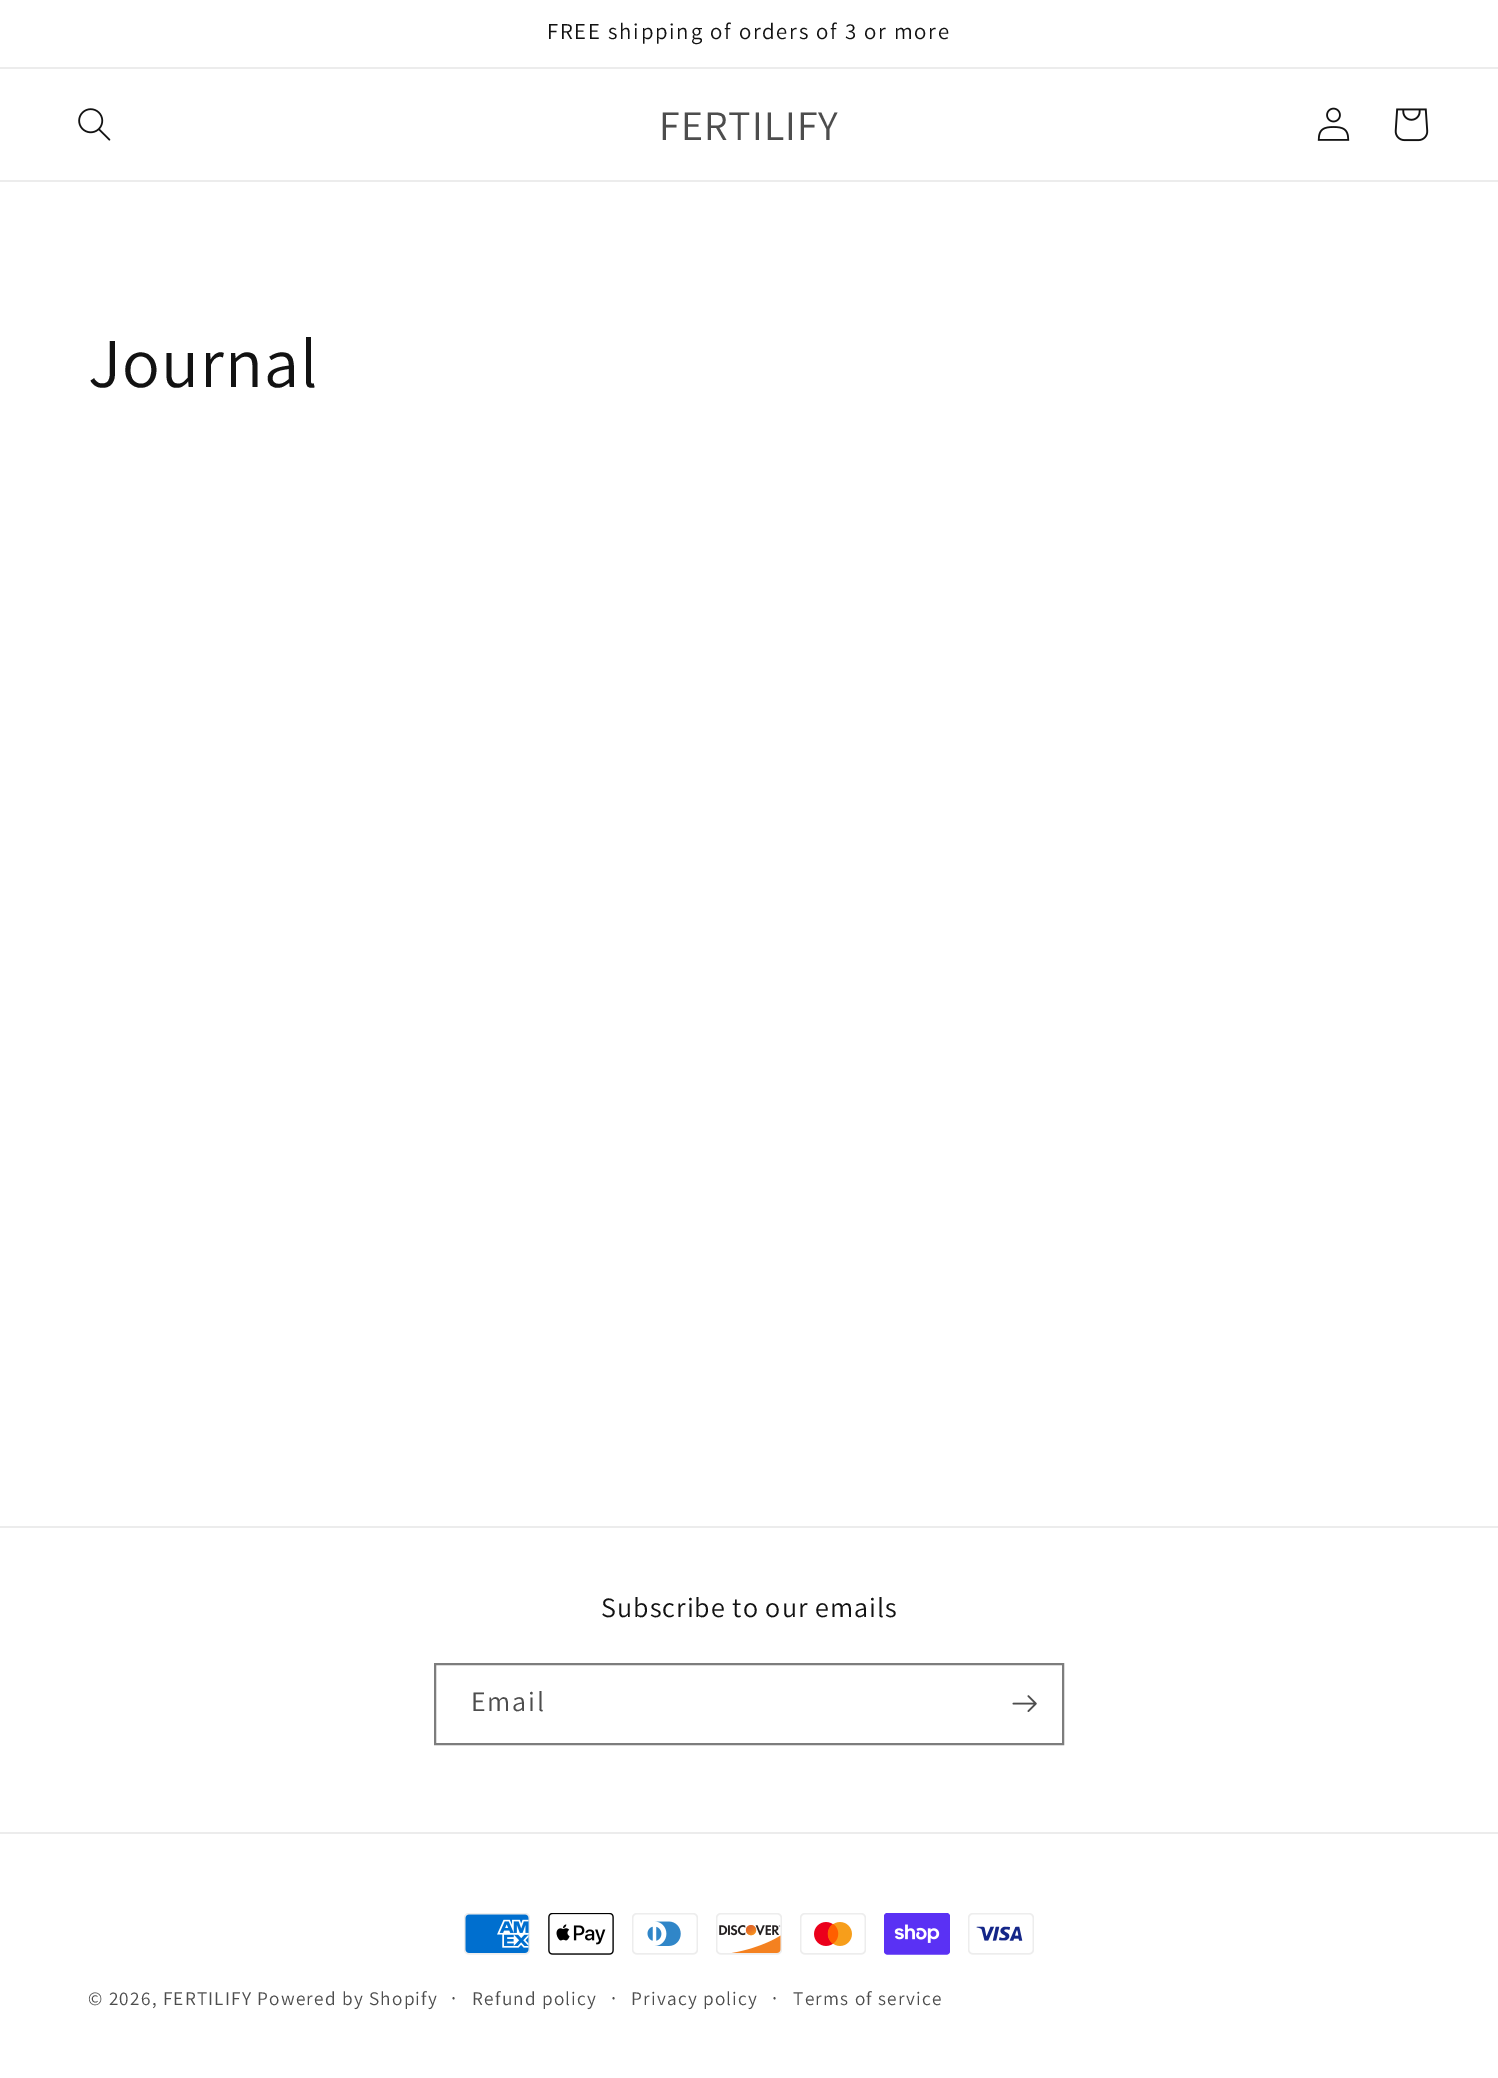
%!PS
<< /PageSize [1498 2078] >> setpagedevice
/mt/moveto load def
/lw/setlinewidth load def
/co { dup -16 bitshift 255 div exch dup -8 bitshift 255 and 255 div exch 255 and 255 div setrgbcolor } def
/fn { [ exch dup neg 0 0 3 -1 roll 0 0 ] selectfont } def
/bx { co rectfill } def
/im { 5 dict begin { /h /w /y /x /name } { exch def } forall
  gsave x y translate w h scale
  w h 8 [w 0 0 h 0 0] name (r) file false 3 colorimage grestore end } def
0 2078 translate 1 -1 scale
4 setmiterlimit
0 0 1498 2078 16#FFFFFF bx
0 67 1498 2 16#ECECEC bx
0 180 1498 2 16#ECECEC bx
(media/1.raw) 78 108 33 33 im
(media/2.raw) 1317 107 33 34 im
(media/3.raw) 1394 108 35 34 im
0 1526 1498 2 16#ECECEC bx
16#7D7D7D co
2 lw
435 1664 628 80 rectstroke
(media/4.raw) 1012 1695 25 17 im
0 1832 1498 2 16#ECECEC bx
(media/5.raw) 464 1913 66 42 im
(media/6.raw) 548 1913 66 42 im
(media/7.raw) 632 1913 66 42 im
(media/8.raw) 716 1913 66 42 im
(media/9.raw) 800 1913 66 42 im
(media/10.raw) 884 1913 66 42 im
(media/11.raw) 968 1913 66 42 im
/Assistant-Regular 22.75 fn
16#121212 co
547 39 mt 1.75 0 (FREE shipping of orders of 3 or more) ashow
/Assistant-Regular 42 fn
16#4D4D4D co
659 140 mt 1.05 0 (FERTILIFY) ashow
/Assistant-Regular 70 fn
16#121212 co
88 387 mt 1.05 0 (Journal) ashow
/Assistant-Regular 28 fn
601 1617 mt 1.05 0 (Subscribe to our emails) ashow
16#4D4D4D co
471 1711 mt 1.75 0 (Email) ashow
/Assistant-Regular 19.25 fn
88 2005 mt 1.25 0 (© 2026, FERTILIFY) ashow
257 2005 mt 1.25 0 (Powered by Shopify) ashow
/Assistant-Regular 21 fn
451 2005 mt 1.25 0 (·) ashow
/Assistant-Regular 19.25 fn
472 2005 mt 1.25 0 (Refund policy) ashow
/Assistant-Regular 21 fn
611 2005 mt 1.25 0 (·) ashow
/Assistant-Regular 19.25 fn
631 2005 mt 1.25 0 (Privacy policy) ashow
/Assistant-Regular 21 fn
772 2005 mt 1.25 0 (·) ashow
/Assistant-Regular 19.25 fn
793 2005 mt 1.25 0 (Terms of service) ashow
showpage
